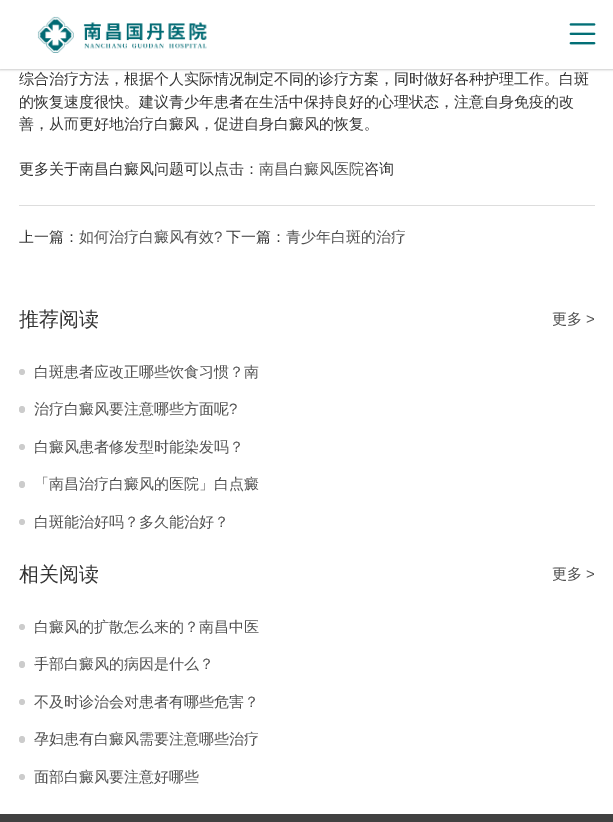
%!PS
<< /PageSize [613 822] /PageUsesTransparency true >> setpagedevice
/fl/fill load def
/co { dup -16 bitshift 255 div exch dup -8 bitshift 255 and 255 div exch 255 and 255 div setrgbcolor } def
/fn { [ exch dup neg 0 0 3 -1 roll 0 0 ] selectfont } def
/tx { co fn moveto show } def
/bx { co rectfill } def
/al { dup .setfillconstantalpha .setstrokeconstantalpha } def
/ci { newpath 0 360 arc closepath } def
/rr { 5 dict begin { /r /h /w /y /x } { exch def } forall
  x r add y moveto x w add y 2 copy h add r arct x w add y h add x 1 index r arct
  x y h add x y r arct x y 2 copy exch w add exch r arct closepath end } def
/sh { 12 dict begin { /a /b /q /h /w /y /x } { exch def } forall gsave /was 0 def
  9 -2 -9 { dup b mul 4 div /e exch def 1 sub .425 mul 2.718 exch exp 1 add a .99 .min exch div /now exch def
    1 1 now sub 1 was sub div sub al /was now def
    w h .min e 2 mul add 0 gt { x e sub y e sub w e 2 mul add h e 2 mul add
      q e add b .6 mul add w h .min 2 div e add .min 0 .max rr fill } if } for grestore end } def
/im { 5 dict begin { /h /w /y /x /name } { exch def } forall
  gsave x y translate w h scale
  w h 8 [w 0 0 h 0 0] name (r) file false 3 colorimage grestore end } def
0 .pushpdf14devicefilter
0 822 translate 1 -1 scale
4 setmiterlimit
0 0 613 822 16#FFFFFF bx
16#000000 co
0 1 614 69 0 1 .2 sh
0 0 613 69 16#FFFFFF bx
(media/1.raw) 37 16 170 37 im
(media/2.raw) 569 23 27 22 im
19 205 576 1 16#DDDDDD bx
16#CCCCCC co
22 372 3 ci fl
19 406 6 7 3 rr fl
22 447 3 ci fl
19 481 6 7 3 rr fl
22 522 3 ci fl
22 627 3 ci fl
19 661 6 7 3 rr fl
22 702 3 ci fl
19 736 6 7 3 rr fl
22 777 3 ci fl
0 814 613 8 16#414141 bx
(综合治疗方法，根据个人实际情况制定不同的诊疗方案，同时做好各种护理工作。白斑) 19 84 /WenQuanYiZenHei-Medium 15 16#333333 tx
(的恢复速度很快。建议青少年患者在生活中保持良好的心理状态，注意自身免疫的改) 19 107 /WenQuanYiZenHei-Medium 15 16#333333 tx
(善，从而更好地治疗白癜风，促进自身白癜风的恢复。) 19 129 /WenQuanYiZenHei-Medium 15 16#333333 tx
(更多关于南昌白癜风问题可以点击：) 19 174 /WenQuanYiZenHei-Medium 15 16#333333 tx
(南昌白癜风医院) 259 174 /WenQuanYiZenHei-Medium 15 16#505050 tx
(咨询) 364 174 /WenQuanYiZenHei-Medium 15 16#333333 tx
(上一篇：) 19 242 /WenQuanYiZenHei-Medium 15 16#333333 tx
(如何治疗白癜风有效) 79 242 /WenQuanYiZenHei-Medium 15 16#505050 tx
(?) 214 242 /LiberationSans-Regular 15 16#505050 tx
(下一篇：) 226 242 /WenQuanYiZenHei-Medium 15 16#333333 tx
(青少年白斑的治疗) 286 242 /WenQuanYiZenHei-Medium 15 16#505050 tx
(推荐阅读) 19 326 /WenQuanYiZenHei-Medium 20 16#333333 tx
(更多) 552 324 /WenQuanYiZenHei-Medium 15 16#505050 tx
(>) 586 324 /LiberationSans-Regular 15 16#505050 tx
(白斑患者应改正哪些饮食习惯？南) 34 377 /WenQuanYiZenHei-Medium 15 16#505050 tx
(治疗白癜风要注意哪些方面呢) 34 414 /WenQuanYiZenHei-Medium 15 16#505050 tx
(?) 229 414 /LiberationSans-Regular 15 16#505050 tx
(白癜风患者修发型时能染发吗？) 34 452 /WenQuanYiZenHei-Medium 15 16#505050 tx
(「南昌治疗白癜风的医院」白点癜) 34 489 /WenQuanYiZenHei-Medium 15 16#505050 tx
(白斑能治好吗？多久能治好？) 34 527 /WenQuanYiZenHei-Medium 15 16#505050 tx
(相关阅读) 19 581 /WenQuanYiZenHei-Medium 20 16#333333 tx
(更多) 552 579 /WenQuanYiZenHei-Medium 15 16#505050 tx
(>) 586 579 /LiberationSans-Regular 15 16#505050 tx
(白癜风的扩散怎么来的？南昌中医) 34 632 /WenQuanYiZenHei-Medium 15 16#505050 tx
(手部白癜风的病因是什么？) 34 669 /WenQuanYiZenHei-Medium 15 16#505050 tx
(不及时诊治会对患者有哪些危害？) 34 707 /WenQuanYiZenHei-Medium 15 16#505050 tx
(孕妇患有白癜风需要注意哪些治疗) 34 744 /WenQuanYiZenHei-Medium 15 16#505050 tx
(面部白癜风要注意好哪些) 34 782 /WenQuanYiZenHei-Medium 15 16#505050 tx
.poppdf14devicefilter showpage
